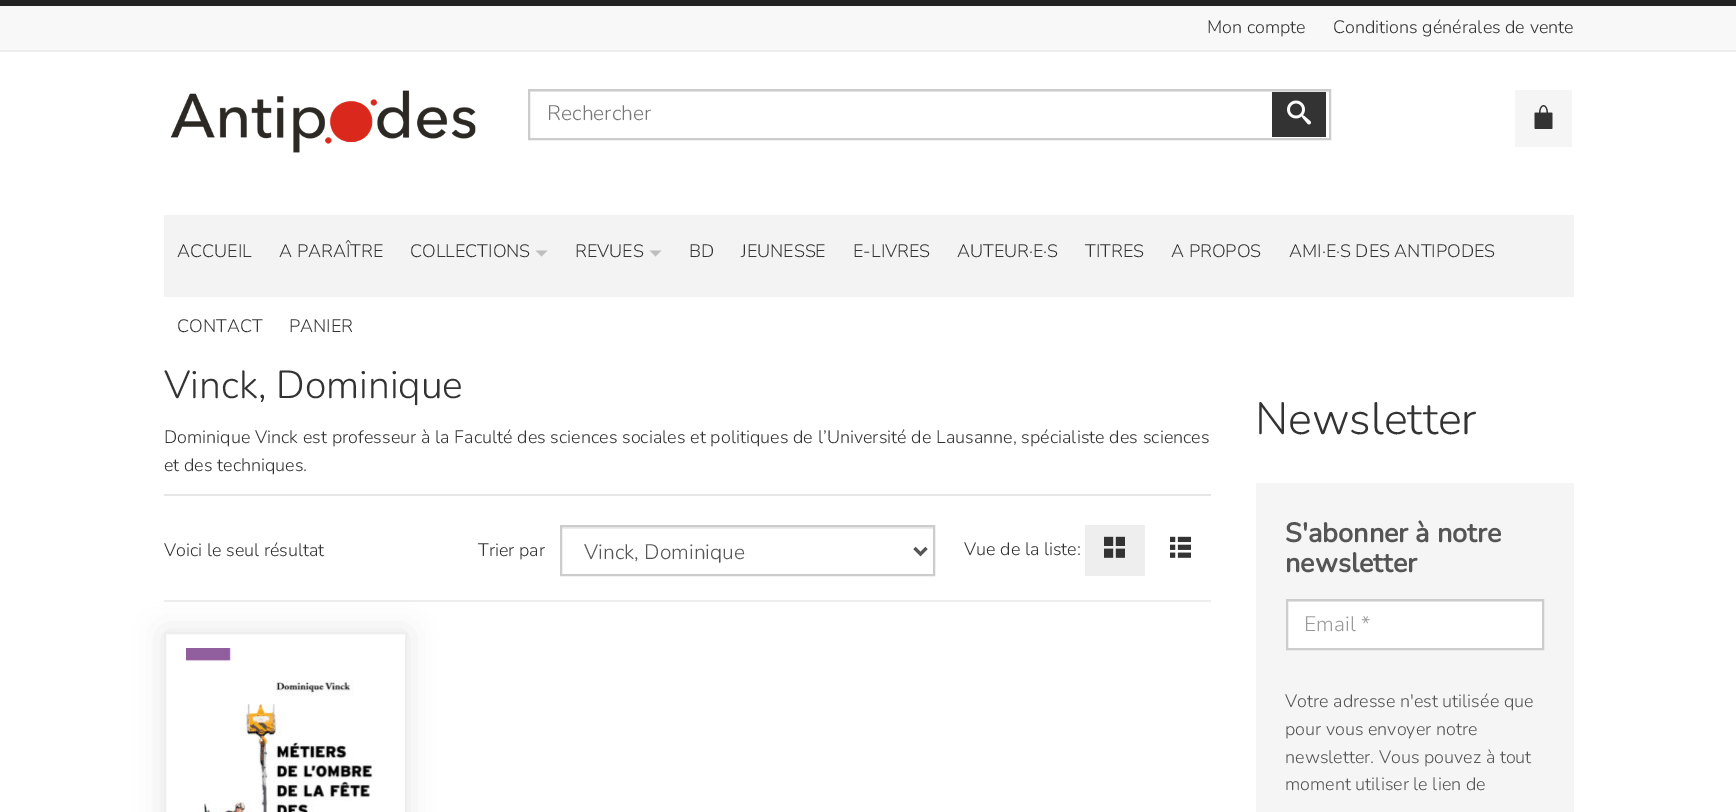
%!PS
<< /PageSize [1736 812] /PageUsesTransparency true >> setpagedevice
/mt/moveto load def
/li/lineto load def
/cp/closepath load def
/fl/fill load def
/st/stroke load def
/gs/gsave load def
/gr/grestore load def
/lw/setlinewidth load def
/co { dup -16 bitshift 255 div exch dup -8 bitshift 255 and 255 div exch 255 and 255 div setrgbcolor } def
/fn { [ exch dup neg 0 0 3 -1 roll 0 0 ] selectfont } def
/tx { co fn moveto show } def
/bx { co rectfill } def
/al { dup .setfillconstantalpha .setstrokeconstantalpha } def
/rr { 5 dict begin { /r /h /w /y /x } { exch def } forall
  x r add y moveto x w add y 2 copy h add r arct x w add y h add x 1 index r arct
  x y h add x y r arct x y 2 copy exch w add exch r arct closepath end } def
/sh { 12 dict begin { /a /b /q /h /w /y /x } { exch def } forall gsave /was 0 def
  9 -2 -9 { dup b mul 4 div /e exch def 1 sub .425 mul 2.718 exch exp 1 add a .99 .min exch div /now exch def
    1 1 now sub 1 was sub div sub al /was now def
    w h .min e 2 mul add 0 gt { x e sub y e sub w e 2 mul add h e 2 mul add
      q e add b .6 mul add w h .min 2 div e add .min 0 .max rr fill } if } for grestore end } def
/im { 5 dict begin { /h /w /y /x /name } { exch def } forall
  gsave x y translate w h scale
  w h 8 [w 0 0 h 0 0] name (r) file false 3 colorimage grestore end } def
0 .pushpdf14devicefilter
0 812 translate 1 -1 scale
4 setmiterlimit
0 0 1736 812 16#FFFFFF bx
0 6 1736 44 16#F8F8F8 bx
0 0 1736 6 16#222222 bx
0 50 1736 2 16#EEEEEE bx
(media/1.raw) 170 90 306 63 im
530 91 799 1 16#ECECEC bx
16#CCCCCC co
2 lw
529 90 801 49 rectstroke
1272 92 54 45 16#333333 bx
(media/2.raw) 1287 100 24 25 im
1515 90 57 57 16#F5F5F5 bx
(media/3.raw) 1534 105 19 24 im
164 215 1410 82 16#F3F3F3 bx
16#BEBEBE co
535.5 250.5 mt 547.5 250.5 li 541.5 256.5 li cp fl
649.5 250.5 mt 661.5 250.5 li 655.5 256.5 li cp fl
164 494 1047 2 16#E6E6E6 bx
561 527 372 2 16#ECECEC bx
16#CCCCCC co
561 526 373 49 rectstroke
16#555555 co
3 lw
914.5 548 mt 920.5 554 li 926.5 548 li st
1085 525 60 51 16#EEEEEE bx
(media/4.raw) 1104 536 21 22 im
(media/5.raw) 1170 536 21 22 im
164 600 1047 2 16#EEEEEE bx
16#000000 co
164 632 243 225 0 15 .1 sh
16#FFFFFF co
165 633 mt 406 633 li 406 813 li 165 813 li cp gs fl gr
16#EEEEEE co
2 lw
st
(media/6.raw) 186 648 189 164 im
1256 483 318 329 16#F5F5F5 bx
1288 602 254 46 16#FFFFFF bx
1287 601 255 1 16#ECECEC bx
16#CCCCCC co
1287 600 256 49 rectstroke
(Mon compte) 1207 33 /Nunito-Light 18 16#333333 tx
(Conditions générales de vente) 1333 33 /Nunito-Light 18 16#333333 tx
(Rechercher) 547 120 /Nunito-Light 21 16#777777 tx
(ACCUEIL) 177 257 /Nunito-Light 18 16#333333 tx
(A PARAÎTRE) 279 257 /Nunito-Light 18 16#333333 tx
(COLLECTIONS) 410 257 /Nunito-Light 18 16#333333 tx
(REVUES) 575 257 /Nunito-Light 18 16#333333 tx
(BD) 689 257 /Nunito-Light 18 16#333333 tx
(JEUNESSE) 741 257 /Nunito-Light 18 16#333333 tx
(E-LIVRES) 853 257 /Nunito-Light 18 16#333333 tx
(AUTEUR·E·S) 957 257 /Nunito-Light 18 16#333333 tx
(TITRES) 1085 257 /Nunito-Light 18 16#333333 tx
(A PROPOS) 1171 257 /Nunito-Light 18 16#333333 tx
(AMI·E·S DES ANTIPODES) 1289 257 /Nunito-Light 18 16#333333 tx
(CONTACT) 177 332 /Nunito-Light 18 16#333333 tx
(PANIER) 289 332 /Nunito-Light 18 16#333333 tx
(Vinck, Dominique) 164 398 /Nunito-Light 39 16#333333 tx
/Nunito-Light 18 fn
164 443 mt .25 0 32 (Dominique Vinck est professeur à la Faculté des sciences sociales et politiques de l’Université de Lausanne, spécialiste des sciences) widthshow
(et des techniques.) 164 471 /Nunito-Light 18 16#333333 tx
(Voici le seul résultat) 164 556 /Nunito-Light 18 16#333333 tx
(Trier par) 478 556 /Nunito-Light 18 16#333333 tx
(Vinck, Dominique) 584 559 /Nunito-Light 21 16#555555 tx
(Vue de la liste:) 964 555 /Nunito-Light 18 16#333333 tx
(Newsletter) 1255 434 /Nunito-Light 45 16#333333 tx
(S'abonner à notre) 1285 542 /Nunito-Bold 27 16#555555 tx
(newsletter) 1285 572 /Nunito-Bold 27 16#555555 tx
(Email *) 1304 631 /Nunito-Light 21 16#999999 tx
(Votre adresse n'est utilisée que) 1285 707 /Nunito-Light 18 16#555555 tx
(pour vous envoyer notre) 1285 735 /Nunito-Light 18 16#555555 tx
(newsletter. Vous pouvez à tout) 1285 763 /Nunito-Light 18 16#555555 tx
(moment utiliser le lien de) 1285 790 /Nunito-Light 18 16#555555 tx
.poppdf14devicefilter showpage
